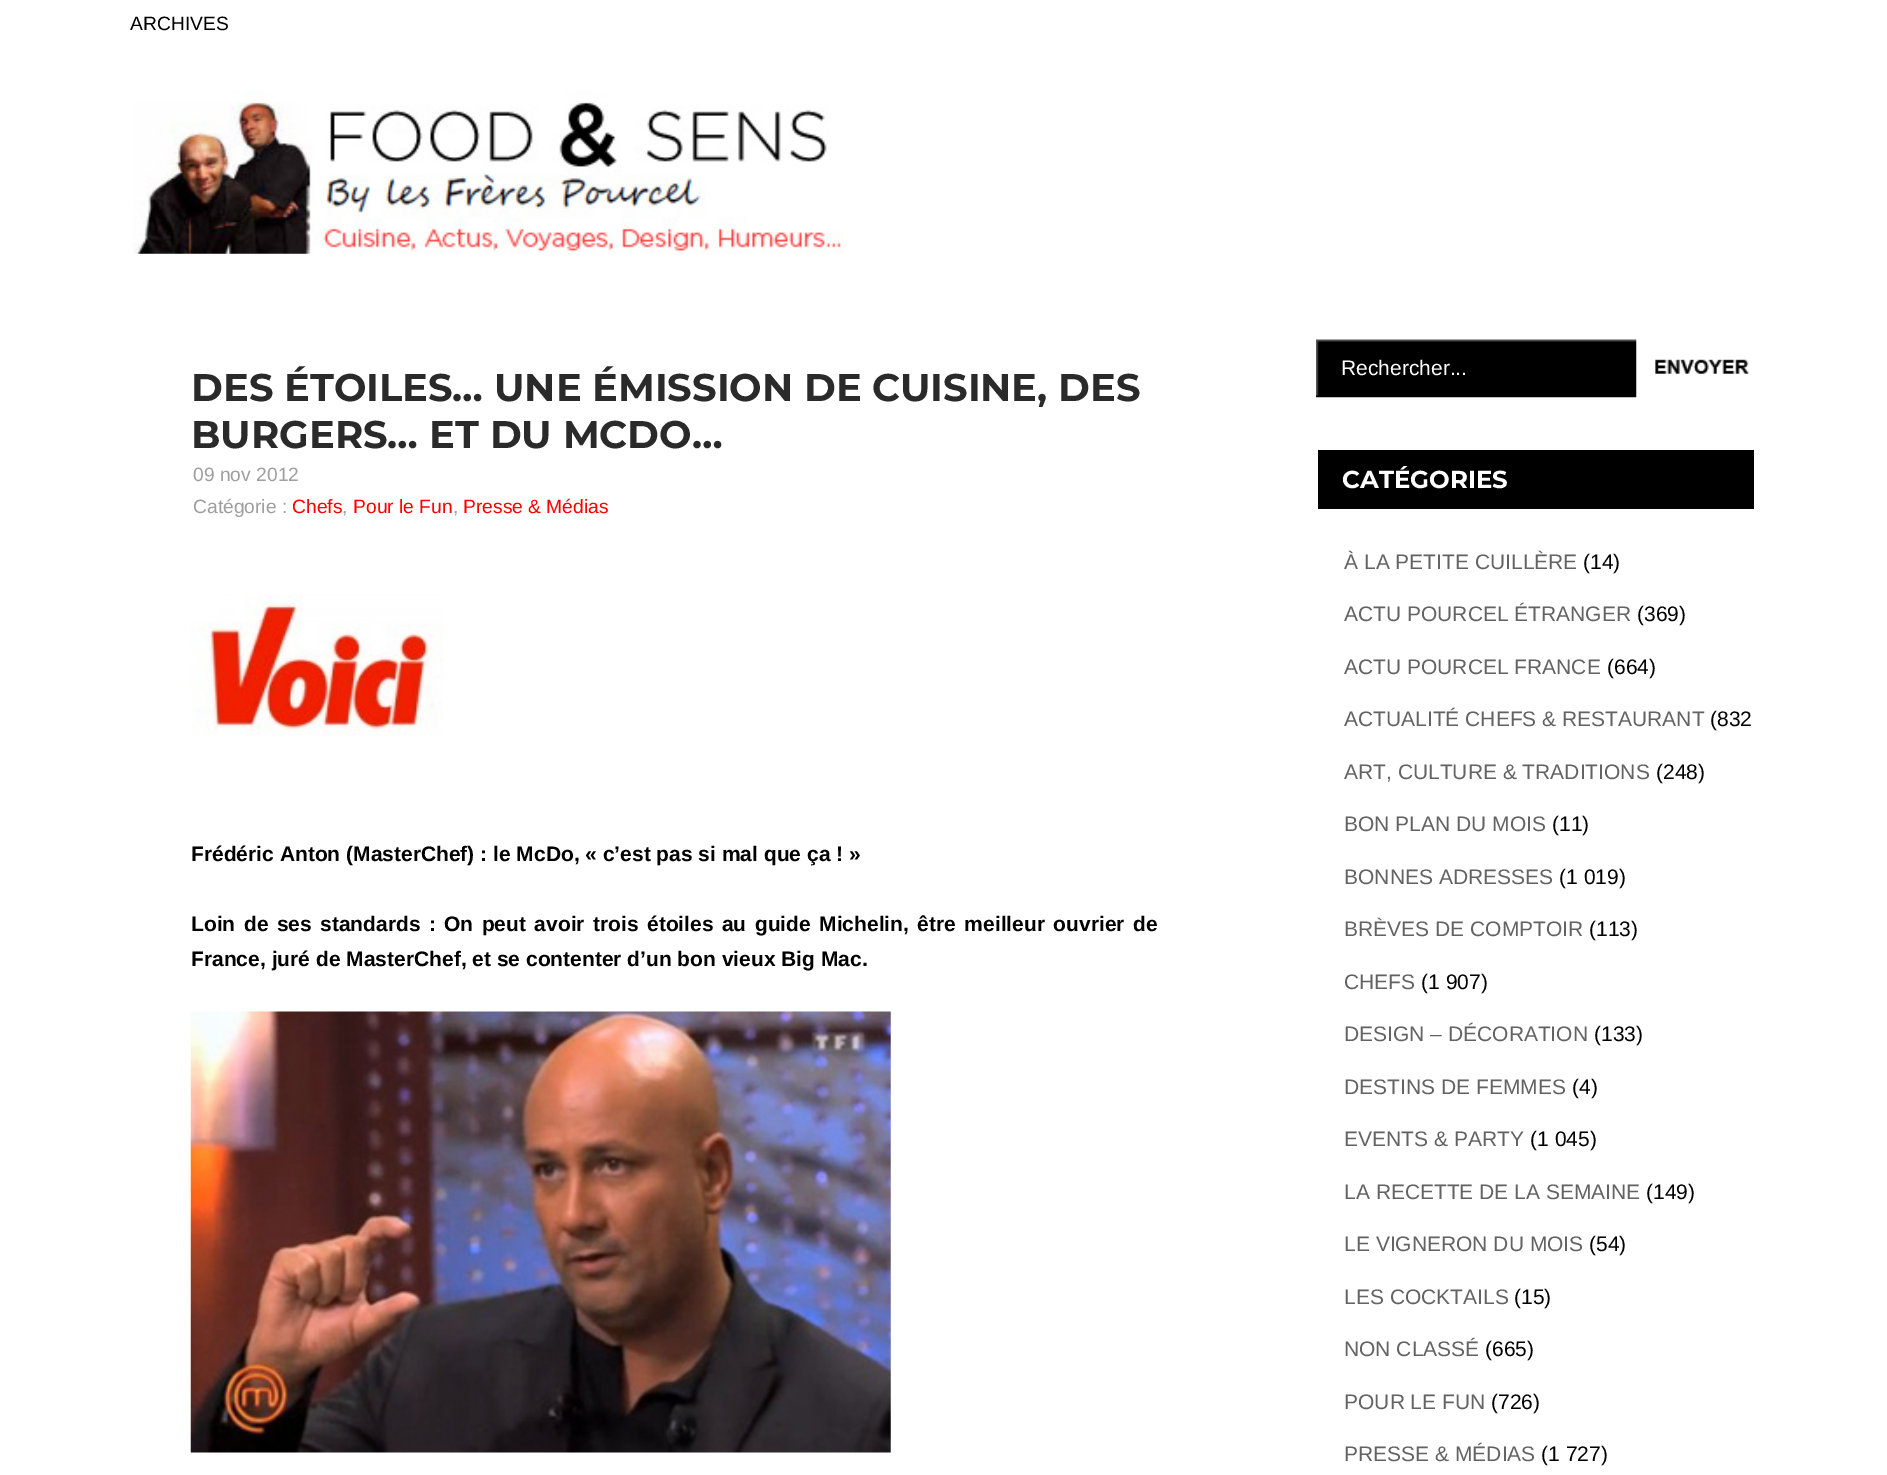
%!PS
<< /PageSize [1887 1475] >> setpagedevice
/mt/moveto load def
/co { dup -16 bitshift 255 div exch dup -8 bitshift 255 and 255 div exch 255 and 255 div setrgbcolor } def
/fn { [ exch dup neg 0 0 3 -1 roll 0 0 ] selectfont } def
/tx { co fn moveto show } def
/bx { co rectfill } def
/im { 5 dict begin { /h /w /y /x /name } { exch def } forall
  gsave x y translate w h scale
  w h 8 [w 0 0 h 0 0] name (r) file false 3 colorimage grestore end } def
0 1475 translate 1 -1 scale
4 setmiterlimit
0 0 1887 1475 16#FFFFFF bx
(media/1.raw) 133 91 711 163 im
(media/2.raw) 191 594 253 142 im
(media/3.raw) 190 1011 701 442 im
(media/4.raw) 1316 339 321 59 im
(media/5.raw) 1655 359 95 15 im
1318 450 436 59 16#000000 bx
(ARCHIVES) 130 30 /LiberationSans-Regular 19.25 16#000000 tx
(DES ÉTOILES… UNE ÉMISSION DE CUISINE, DES) 191 401 /Montserrat-Thin 38.5 16#2A2A2A tx
(BURGERS… ET DU MCDO…) 191 448 /Montserrat-Thin 38.5 16#2A2A2A tx
(09 nov 2012) 193 481 /LiberationSans-Regular 19.25 16#9F9F9F tx
(Catégorie :) 193 513 /LiberationSans-Regular 19.25 16#9F9F9F tx
(Chefs) 292 513 /LiberationSans-Regular 19.25 16#FF0000 tx
(,) 342 513 /LiberationSans-Regular 19.25 16#9F9F9F tx
(Pour le Fun) 353 513 /LiberationSans-Regular 19.25 16#FF0000 tx
(,) 453 513 /LiberationSans-Regular 19.25 16#9F9F9F tx
(Presse & Médias) 463 513 /LiberationSans-Regular 19.25 16#FF0000 tx
(Frédéric Anton \(MasterChef\) : le McDo, « c’est pas si mal que ça ! ») 191 861 /LiberationSans-Bold 21 16#000000 tx
191 931 mt 2.6 0 32 (Loin de ses standards :) widthshow
444 931 mt 2.6 0 32 (On peut avoir trois étoiles au guide Michelin, être meilleur ouvrier de) widthshow
(France, juré de MasterChef, et se contenter d’un bon vieux Big Mac.) 191 966 /LiberationSans-Bold 21 16#000000 tx
(Rechercher...) 1341 375 /LiberationSans-Regular 21 16#FFFFFF tx
(CATÉGORIES) 1342 488 /Montserrat-Thin 24.5 16#FFFFFF tx
(À LA PETITE CUILLÈRE) 1344 569 /LiberationSans-Regular 21 16#636363 tx
(\(14\)) 1583 569 /LiberationSans-Regular 21 16#000000 tx
(ACTU POURCEL ÉTRANGER) 1344 621 /LiberationSans-Regular 21 16#636363 tx
(\(369\)) 1637 621 /LiberationSans-Regular 21 16#000000 tx
(ACTU POURCEL FRANCE) 1344 674 /LiberationSans-Regular 21 16#636363 tx
(\(664\)) 1607 674 /LiberationSans-Regular 21 16#000000 tx
(ACTUALITÉ CHEFS & RESTAURANT) 1344 726 /LiberationSans-Regular 21 16#636363 tx
(\(832) 1710 726 /LiberationSans-Regular 21 16#000000 tx
(ART, CULTURE & TRADITIONS) 1344 779 /LiberationSans-Regular 21 16#636363 tx
(\(248\)) 1656 779 /LiberationSans-Regular 21 16#000000 tx
(BON PLAN DU MOIS) 1344 831 /LiberationSans-Regular 21 16#636363 tx
(\(11\)) 1552 831 /LiberationSans-Regular 21 16#000000 tx
(BONNES ADRESSES) 1344 884 /LiberationSans-Regular 21 16#636363 tx
(\(1 019\)) 1559 884 /LiberationSans-Regular 21 16#000000 tx
(BRÈVES DE COMPTOIR) 1344 936 /LiberationSans-Regular 21 16#636363 tx
(\(113\)) 1589 936 /LiberationSans-Regular 21 16#000000 tx
(CHEFS) 1344 989 /LiberationSans-Regular 21 16#636363 tx
(\(1 907\)) 1421 989 /LiberationSans-Regular 21 16#000000 tx
(DESIGN – DÉCORATION) 1344 1041 /LiberationSans-Regular 21 16#636363 tx
(\(133\)) 1594 1041 /LiberationSans-Regular 21 16#000000 tx
(DESTINS DE FEMMES) 1344 1094 /LiberationSans-Regular 21 16#636363 tx
(\(4\)) 1572 1094 /LiberationSans-Regular 21 16#000000 tx
(EVENTS & PARTY) 1344 1146 /LiberationSans-Regular 21 16#636363 tx
(\(1 045\)) 1530 1146 /LiberationSans-Regular 21 16#000000 tx
(LA RECETTE DE LA SEMAINE) 1344 1199 /LiberationSans-Regular 21 16#636363 tx
(\(149\)) 1646 1199 /LiberationSans-Regular 21 16#000000 tx
(LE VIGNERON DU MOIS) 1344 1251 /LiberationSans-Regular 21 16#636363 tx
(\(54\)) 1589 1251 /LiberationSans-Regular 21 16#000000 tx
(LES COCKTAILS) 1344 1304 /LiberationSans-Regular 21 16#636363 tx
(\(15\)) 1514 1304 /LiberationSans-Regular 21 16#000000 tx
(NON CLASSÉ) 1344 1356 /LiberationSans-Regular 21 16#636363 tx
(\(665\)) 1485 1356 /LiberationSans-Regular 21 16#000000 tx
(POUR LE FUN) 1344 1409 /LiberationSans-Regular 21 16#636363 tx
(\(726\)) 1491 1409 /LiberationSans-Regular 21 16#000000 tx
(PRESSE & MÉDIAS) 1344 1461 /LiberationSans-Regular 21 16#636363 tx
(\(1 727\)) 1541 1461 /LiberationSans-Regular 21 16#000000 tx
showpage
